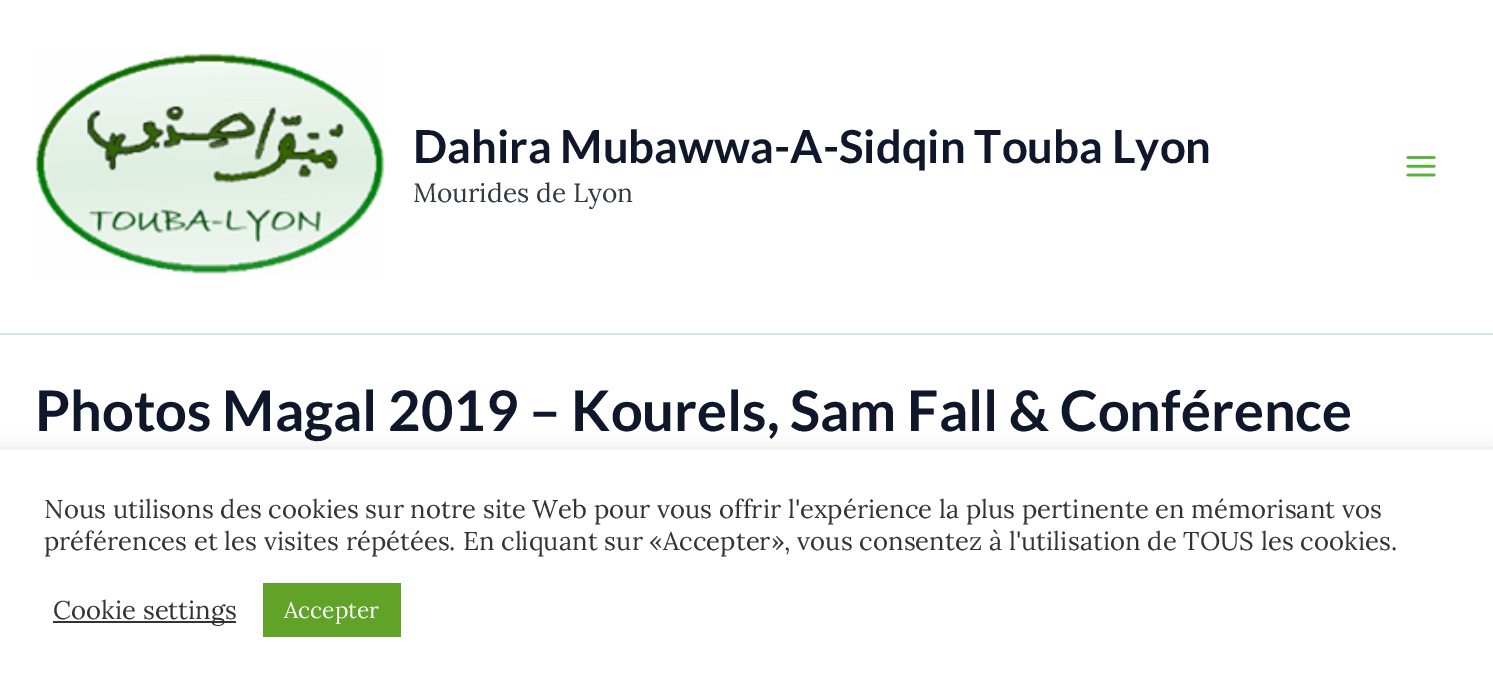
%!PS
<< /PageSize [1493 688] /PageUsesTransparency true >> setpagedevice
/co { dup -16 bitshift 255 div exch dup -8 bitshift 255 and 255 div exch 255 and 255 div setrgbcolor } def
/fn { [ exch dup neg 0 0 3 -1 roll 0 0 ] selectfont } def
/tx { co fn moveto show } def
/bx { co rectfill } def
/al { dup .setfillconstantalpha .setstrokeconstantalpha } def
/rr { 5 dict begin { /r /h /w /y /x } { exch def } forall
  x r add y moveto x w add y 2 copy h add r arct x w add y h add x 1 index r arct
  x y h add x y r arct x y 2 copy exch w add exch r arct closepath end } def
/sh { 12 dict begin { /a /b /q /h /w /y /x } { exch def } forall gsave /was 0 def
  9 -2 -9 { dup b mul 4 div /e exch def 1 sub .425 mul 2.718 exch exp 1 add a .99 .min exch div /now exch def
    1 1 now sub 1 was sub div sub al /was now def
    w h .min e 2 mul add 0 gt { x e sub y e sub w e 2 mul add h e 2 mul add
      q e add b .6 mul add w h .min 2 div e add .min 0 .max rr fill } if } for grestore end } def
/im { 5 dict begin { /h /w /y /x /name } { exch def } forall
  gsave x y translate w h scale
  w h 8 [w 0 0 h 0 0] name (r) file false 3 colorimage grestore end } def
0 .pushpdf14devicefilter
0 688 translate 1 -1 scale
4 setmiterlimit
0 0 1493 688 16#FFFFFF bx
0 333 1493 2 16#D5EAD8 bx
(media/1.raw) 35 53 350 222 im
(media/2.raw) 1406 156 30 21 im
16#ACABAB co
0 448 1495 240 0 9 .3 sh
0 450 1493 238 16#FFFFFF bx
53 621 183 2 16#333333 bx
263 583 138 54 16#61A229 bx
(Dahira Mubawwa-A-Sidqin Touba Lyon) 413 163 /Lato-Bold 45.5 16#0F172A tx
(Mourides de Lyon) 413 202 /Lora-Regular 26.25 16#2F3B40 tx
(Photos Magal 2019 – Kourels, Sam Fall & Conférence) 35 431 /Lato-Bold 56 16#0F172A tx
(Nous utilisons des cookies sur notre site Web pour vous offrir l'expérience la plus pertinente en mémorisant vos) 44 518 /Lora-Regular 25.67 16#333333 tx
(préférences et les visites répétées. En cliquant sur «Accepter», vous consentez à l'utilisation de TOUS les cookies.) 44 550 /Lora-Regular 25.67 16#333333 tx
(Cookie settings) 53 619 /Lora-Regular 25.67 16#333333 tx
(Accepter) 284 618 /Lora-Regular 22.75 16#FFFFFF tx
.poppdf14devicefilter showpage
